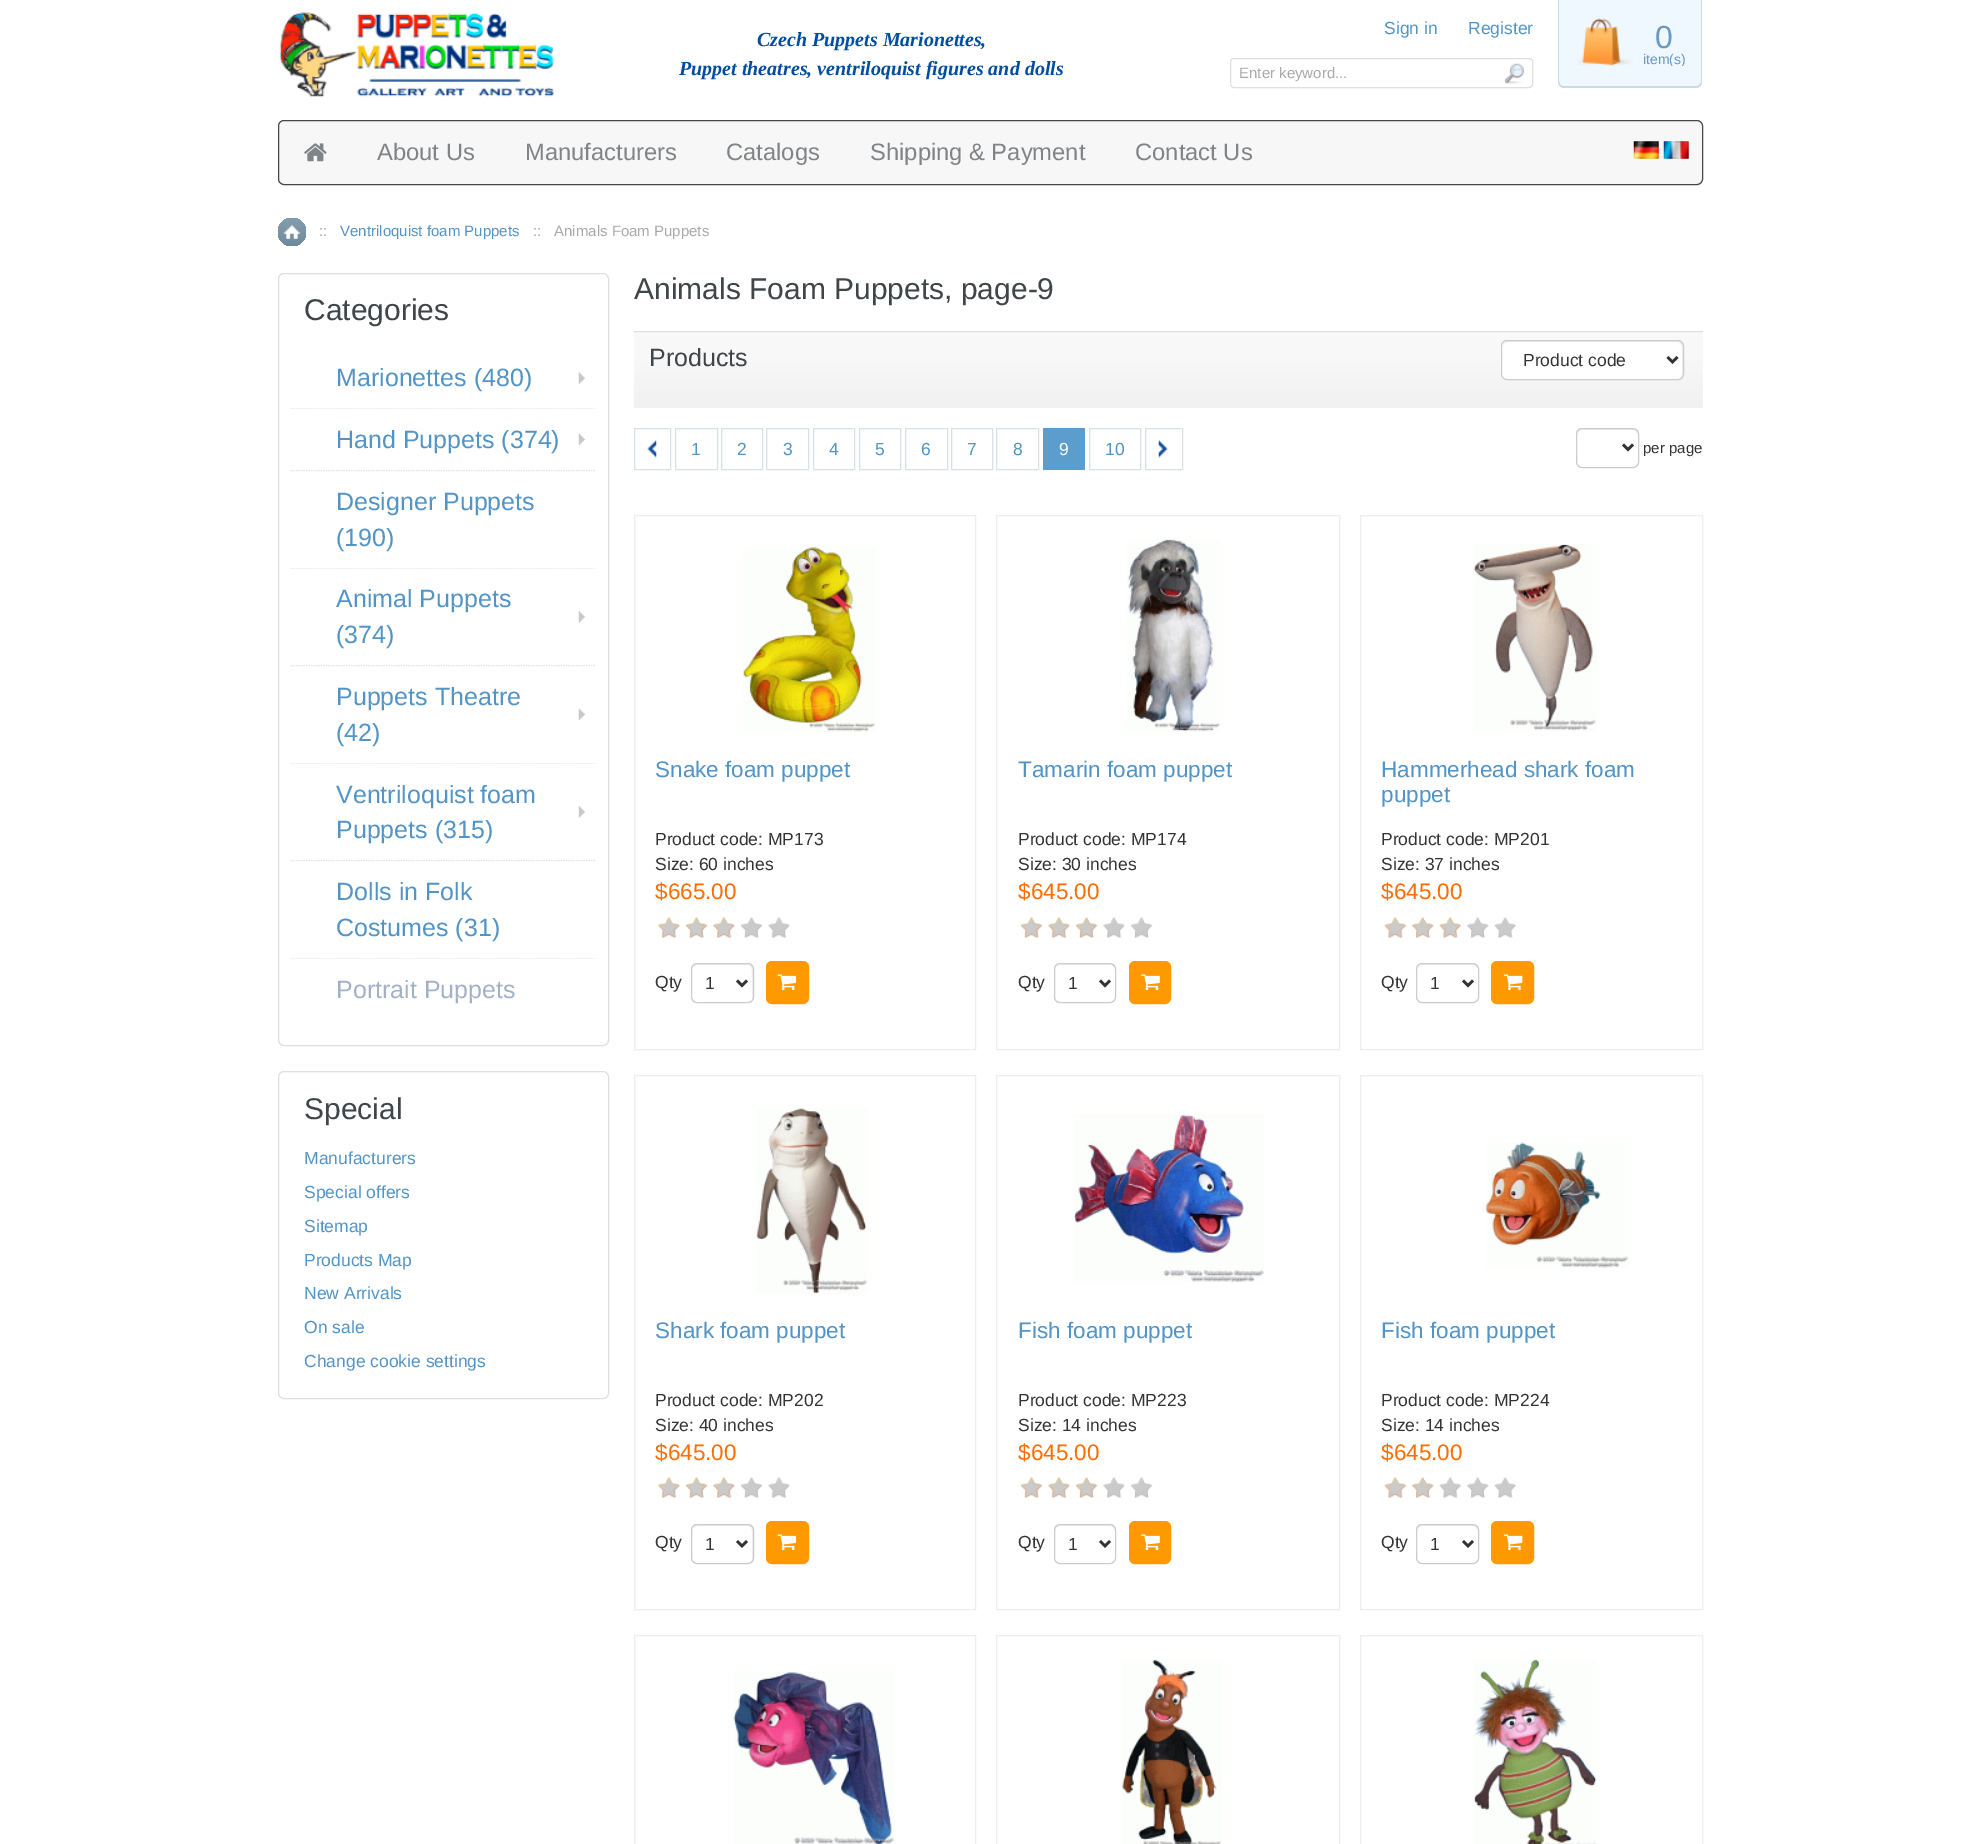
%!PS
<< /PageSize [1979 1844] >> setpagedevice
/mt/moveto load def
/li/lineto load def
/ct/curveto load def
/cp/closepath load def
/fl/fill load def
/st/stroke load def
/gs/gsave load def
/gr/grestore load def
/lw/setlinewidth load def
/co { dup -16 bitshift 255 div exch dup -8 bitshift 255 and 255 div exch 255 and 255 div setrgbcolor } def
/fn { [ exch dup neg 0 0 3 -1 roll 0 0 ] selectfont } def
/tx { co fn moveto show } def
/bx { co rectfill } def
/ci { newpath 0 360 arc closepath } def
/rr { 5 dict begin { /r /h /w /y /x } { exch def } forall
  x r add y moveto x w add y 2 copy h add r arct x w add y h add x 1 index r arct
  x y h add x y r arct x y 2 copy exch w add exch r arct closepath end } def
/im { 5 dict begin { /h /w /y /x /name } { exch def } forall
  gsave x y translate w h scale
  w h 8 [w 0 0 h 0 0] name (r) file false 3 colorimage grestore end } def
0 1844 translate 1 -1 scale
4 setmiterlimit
0 0 1979 1844 16#FFFFFF bx
(media/1.raw) 279 12 275 85 im
16#DFDFDF co
1230.5 58.5 302 29 3.5 rr st
(media/2.raw) 1504 63 20 21 im
16#EFF8FE co
1559 0 mt 1701 0 li 1701 81 li 1701 84 1699 86 1696 86 ct 1564 86 li 1561 86 1559 84 1559 81 ct cp fl
16#CADCE8 co
1558 0 mt 1702 0 li 1702 81 li 1702 85 1700 88 1696 88 ct 1564 88 li 1560 88 1558 85 1558 81 ct cp 1559 0 mt 1701 0 li 1701 81 li 1701 84 1699 86 1696 86 ct 1564 86 li 1561 86 1559 84 1559 81 ct cp eofill
(media/3.raw) 1577 18 56 48 im
16#F7F7F7 co
278.5 120.5 1424 64 5.5 rr gs fl gr
16#4A4649 co
st
(media/4.raw) 304 143 23 19 im
(media/5.raw) 1633 141 26 18 im
(media/6.raw) 1663 141 26 18 im
gs 292 232 14 ci clip newpath
<< /ShadingType 2 /ColorSpace /DeviceRGB /Coords [292 218 292 246] /Extend [true true] /Function << /FunctionType 2 /Domain [0 1] /C0 [.522 .62 .682] /C1 [.435 .537 .612] /N 1 >> >> shfill gr
(media/7.raw) 283 225 18 14 im
16#DFDFDF co
278.5 273.5 330 772 5.5 rr st
1.2 lw
[1.25 1.25] 0 setdash
291 408 mt 595 408 li st
291 407 304 1 16#FFFFFF bx
(media/8.raw) 578 372 8 12 im
16#DFDFDF co
291 470.5 mt 595 470.5 li st
291 469 301 1 16#FFFFFF bx
(media/9.raw) 578 433 8 12 im
16#DFDFDF co
291 568 mt 595 568 li st
291 567 304 1 16#FFFFFF bx
16#DFDFDF co
291 665.5 mt 595 665.5 li st
291 664 301 1 16#FFFFFF bx
(media/10.raw) 578 611 8 12 im
16#DFDFDF co
291 763 mt 595 763 li st
291 762 304 1 16#FFFFFF bx
(media/9.raw) 578 708 8 12 im
16#DFDFDF co
291 860.5 mt 595 860.5 li st
291 859 301 1 16#FFFFFF bx
(media/10.raw) 578 806 8 12 im
16#DFDFDF co
291 958 mt 595 958 li st
291 957 304 1 16#FFFFFF bx
16#DFDFDF co
1 lw
[] 0 setdash
278.5 1071.5 330 327 5.5 rr st
gs 634 332 mt 1703 332 li 1703 333 li 634 333 li cp clip newpath
<< /ShadingType 2 /ColorSpace /DeviceRGB /Coords [1168 257 1168 333] /Extend [true true] /Function << /FunctionType 3 /Domain [0 1] /Functions [<< /FunctionType 2 /Domain [0 1] /C0 [.973 .973 .973] /C1 [.973 .973 .973] /N 1 >> << /FunctionType 2 /Domain [0 1] /C0 [.973 .973 .973] /C1 [.945 .945 .945] /N 1 >>] /Bounds [.3] /Encode [0 1 0 1] >> >> shfill gr
gs 634 333 mt 1703 333 li 1703 408 li 634 408 li cp clip newpath
<< /ShadingType 2 /ColorSpace /DeviceRGB /Coords [1168 332 1168 408] /Extend [true true] /Function << /FunctionType 3 /Domain [0 1] /Functions [<< /FunctionType 2 /Domain [0 1] /C0 [.973 .973 .973] /C1 [.973 .973 .973] /N 1 >> << /FunctionType 2 /Domain [0 1] /C0 [.973 .973 .973] /C1 [.945 .945 .945] /N 1 >>] /Bounds [.3] /Encode [0 1 0 1] >> >> shfill gr
634 331 1069 1 16#DFDFDF bx
16#FFFFFF co
1501 340 183 40 6 rr fl
16#ECECEC co
1508 342 mt 1678 342 li 1680 342 1682 345 1682 348 ct 1682 375 li 1681 378 li 1682 377 1683 375 1683 374 ct 1683 346 li 1683 343 1681 341 1678 341 ct 1508 341 li 1506 341 1504 343 1503 345 ct 1504 343 1506 342 1508 342 ct cp fl
16#CCCCCC co
1501.5 340.5 182 39 5.5 rr st
16#333333 co
2.5 lw
1667.5 357 mt 1672.5 362 li 1677.5 357 li st
(media/11.raw) 647 440 10 18 im
16#D7E1E8 co
1 lw
634.5 428.5 36 41 rectstroke
675.5 428.5 42 41 rectstroke
721.5 428.5 41 41 rectstroke
766.5 428.5 42 41 rectstroke
813.5 428.5 41 41 rectstroke
859.5 428.5 41 41 rectstroke
905.5 428.5 42 41 rectstroke
951.5 428.5 41 41 rectstroke
996.5 428.5 42 41 rectstroke
1043 428 42 42 16#5B9ECE bx
16#D7E1E8 co
1089.5 428.5 51 41 rectstroke
(media/12.raw) 1158 440 10 18 im
1145.5 428.5 37 41 rectstroke
16#ECECEC co
1582 430 mt 1632 430 li 1635 430 1638 432 1638 435 ct 1638 427 1631 429 1625 429 ct 1591 429 li 1585 429 1578 427 1578 435 ct 1578 432 1580 430 1582 430 ct cp fl
16#CCCCCC co
1576.5 428.5 62 39 5.5 rr st
16#333333 co
2.5 lw
1623 444.5 mt 1628 449.5 li 1633 444.5 li st
16#EEEEEE co
1 lw
634.5 515.5 341 534 rectstroke
(media/13.raw) 743 547 133 185 im
(media/14.raw) 657 917 23 21 im
(media/15.raw) 658 917 22 21 im
(media/16.raw) 685 917 23 21 im
(media/17.raw) 686 917 21 21 im
(media/14.raw) 712 917 23 21 im
(media/15.raw) 713 917 22 21 im
(media/18.raw) 740 917 23 21 im
(media/19.raw) 741 917 21 21 im
(media/20.raw) 768 917 22 21 im
(media/21.raw) 768 917 22 21 im
16#ECECEC co
698 965 mt 731 965 li 752 965 752 961 752 979 ct 752 999 li 753 998 753 997 753 996 ct 753 969 li 753 966 751 964 748 964 ct 698 964 li 696 964 694 965 694 967 ct 695 966 696 965 698 965 ct cp fl
16#CCCCCC co
691.5 963.5 62 39 5.5 rr st
16#333333 co
2.5 lw
737 980.5 mt 742 985.5 li 747 980.5 li st
16#FF9900 co
766.5 961.5 42 42 5.5 rr gs fl gr
1 lw
st
(media/22.raw) 777 974 20 17 im
16#EEEEEE co
996.5 515.5 343 534 rectstroke
(media/23.raw) 1127 539 94 193 im
(media/24.raw) 1020 917 23 21 im
(media/25.raw) 1021 917 21 21 im
(media/14.raw) 1047 917 23 21 im
(media/15.raw) 1048 917 22 21 im
(media/16.raw) 1075 917 23 21 im
(media/17.raw) 1076 917 21 21 im
(media/20.raw) 1103 917 22 21 im
(media/21.raw) 1103 917 22 21 im
(media/18.raw) 1130 917 23 21 im
(media/19.raw) 1131 917 21 21 im
16#ECECEC co
1060 965 mt 1110 965 li 1113 965 1115 967 1115 970 ct 1115 962 1108 964 1102 964 ct 1068 964 li 1062 964 1055 962 1055 970 ct 1055 967 1057 965 1060 965 ct cp fl
16#CCCCCC co
1054.5 963.5 61 39 5.5 rr st
16#333333 co
2.5 lw
1100 980.5 mt 1105 985.5 li 1110 980.5 li st
16#FF9900 co
1129.5 961.5 41 42 5.5 rr gs fl gr
1 lw
st
(media/26.raw) 1141 974 19 17 im
16#EEEEEE co
1360.5 515.5 342 534 rectstroke
(media/27.raw) 1473 544 124 187 im
(media/28.raw) 1384 917 23 21 im
(media/29.raw) 1384 917 22 21 im
(media/30.raw) 1411 917 23 21 im
(media/31.raw) 1412 917 22 21 im
(media/28.raw) 1439 917 23 21 im
(media/29.raw) 1439 917 22 21 im
(media/32.raw) 1467 917 22 21 im
(media/33.raw) 1467 917 22 21 im
(media/34.raw) 1494 917 23 21 im
(media/35.raw) 1494 917 22 21 im
16#ECECEC co
1422 965 mt 1472 965 li 1475 965 1478 967 1478 970 ct 1478 962 1471 964 1465 964 ct 1431 964 li 1425 964 1418 962 1418 970 ct 1418 967 1420 965 1422 965 ct cp fl
16#CCCCCC co
1416.5 963.5 62 39 5.5 rr st
16#333333 co
2.5 lw
1463 980.5 mt 1468 985.5 li 1473 980.5 li st
16#FF9900 co
1491.5 961.5 42 42 5.5 rr gs fl gr
1 lw
st
(media/36.raw) 1503 974 20 17 im
16#EEEEEE co
634.5 1075.5 341 534 rectstroke
(media/37.raw) 756 1108 112 186 im
(media/14.raw) 657 1477 23 21 im
(media/15.raw) 658 1477 22 21 im
(media/16.raw) 685 1477 23 21 im
(media/17.raw) 686 1477 21 21 im
(media/14.raw) 712 1477 23 21 im
(media/15.raw) 713 1477 22 21 im
(media/18.raw) 740 1477 23 21 im
(media/19.raw) 741 1477 21 21 im
(media/20.raw) 768 1477 22 21 im
(media/21.raw) 768 1477 22 21 im
16#ECECEC co
698 1526 mt 748 1526 li 750 1526 752 1528 752 1531 ct 752 1559 li 751 1562 li 752 1561 753 1559 753 1558 ct 753 1530 li 753 1527 751 1525 748 1525 ct 698 1525 li 696 1525 694 1526 694 1528 ct 695 1527 696 1526 698 1526 ct cp fl
16#CCCCCC co
691.5 1524.5 62 39 5.5 rr st
16#333333 co
2.5 lw
737 1541 mt 742 1546 li 747 1541 li st
16#FF9900 co
766.5 1521.5 42 42 5.5 rr gs fl gr
1 lw
st
(media/22.raw) 777 1534 20 17 im
16#EEEEEE co
996.5 1075.5 343 534 rectstroke
(media/38.raw) 1073 1114 191 169 im
(media/24.raw) 1020 1477 23 21 im
(media/25.raw) 1021 1477 21 21 im
(media/14.raw) 1047 1477 23 21 im
(media/15.raw) 1048 1477 22 21 im
(media/16.raw) 1075 1477 23 21 im
(media/17.raw) 1076 1477 21 21 im
(media/20.raw) 1103 1477 22 21 im
(media/21.raw) 1103 1477 22 21 im
(media/18.raw) 1130 1477 23 21 im
(media/19.raw) 1131 1477 21 21 im
16#ECECEC co
1060 1526 mt 1110 1526 li 1113 1526 1115 1528 1115 1531 ct 1115 1523 1108 1525 1102 1525 ct 1068 1525 li 1062 1525 1055 1523 1055 1531 ct 1055 1528 1057 1526 1060 1526 ct cp fl
16#CCCCCC co
1054.5 1524.5 61 39 5.5 rr st
16#333333 co
2.5 lw
1100 1541 mt 1105 1546 li 1110 1541 li st
16#FF9900 co
1129.5 1521.5 41 42 5.5 rr gs fl gr
1 lw
st
(media/26.raw) 1141 1534 19 17 im
16#EEEEEE co
1360.5 1075.5 342 534 rectstroke
(media/39.raw) 1486 1142 143 126 im
(media/28.raw) 1384 1477 23 21 im
(media/29.raw) 1384 1477 22 21 im
(media/30.raw) 1411 1477 23 21 im
(media/31.raw) 1412 1477 22 21 im
(media/34.raw) 1439 1477 23 21 im
(media/35.raw) 1439 1477 22 21 im
(media/32.raw) 1467 1477 22 21 im
(media/33.raw) 1467 1477 22 21 im
(media/34.raw) 1494 1477 23 21 im
(media/35.raw) 1494 1477 22 21 im
16#ECECEC co
1422 1526 mt 1472 1526 li 1475 1526 1478 1528 1478 1531 ct 1478 1523 1471 1525 1465 1525 ct 1431 1525 li 1425 1525 1418 1523 1418 1531 ct 1418 1528 1420 1526 1422 1526 ct cp fl
16#CCCCCC co
1416.5 1524.5 62 39 5.5 rr st
16#333333 co
2.5 lw
1463 1541 mt 1468 1546 li 1473 1541 li st
16#FF9900 co
1491.5 1521.5 42 42 5.5 rr gs fl gr
1 lw
st
(media/36.raw) 1503 1534 20 17 im
16#EEEEEE co
634.5 1635.5 341 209 rectstroke
(media/40.raw) 733 1672 161 172 im
996.5 1635.5 343 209 rectstroke
(media/41.raw) 1122 1659 100 185 im
1360.5 1635.5 342 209 rectstroke
(media/42.raw) 1473 1659 124 185 im
(Czech Puppets Marionettes,) 757 46 /LiberationSerif-BoldItalic 20 16#004D9F tx
(Puppet theatres, ventriloquist figures and dolls) 679 75 /LiberationSerif-BoldItalic 20 16#004D9F tx
(Sign in) 1384 34 /LiberationSans-Regular 17.5 16#5194C5 tx
(Register) 1468 34 /LiberationSans-Regular 17.5 16#5194C5 tx
(Enter keyword...) 1239 78 /LiberationSans-Regular 15 16#A9A9A9 tx
(0) 1655 48 /LiberationSans-Regular 32 16#6999C4 tx
gs
1634 20 51 46 rectclip
(item\(s\)) 1643 64 /LiberationSans-Regular 14 16#6999C4 tx
gr
(About Us) 377 160 /LiberationSans-Regular 23.75 16#808486 tx
(Manufacturers) 525 160 /LiberationSans-Regular 23.75 16#808486 tx
(Catalogs) 726 160 /LiberationSans-Regular 23.75 16#808486 tx
(Shipping & Payment) 870 160 /LiberationSans-Regular 23.75 16#808486 tx
(Contact Us) 1135 160 /LiberationSans-Regular 23.75 16#808486 tx
(::) 319 236 /LiberationSans-Regular 15 16#A2A2A2 tx
(Ventriloquist foam Puppets) 340 236 /LiberationSans-Regular 15 16#5194C5 tx
(::) 533 236 /LiberationSans-Regular 15 16#A2A2A2 tx
(Animals Foam Puppets) 554 236 /LiberationSans-Regular 15 16#A9A9A9 tx
(Categories) 304 320 /LiberationSans-Regular 30 16#404549 tx
(Marionettes \(480\)) 336 386 /LiberationSans-Regular 25 16#5194C5 tx
(Hand Puppets \(374\)) 336 448 /LiberationSans-Regular 25 16#5194C5 tx
(Designer Puppets) 336 510 /LiberationSans-Regular 25 16#5194C5 tx
(\(190\)) 336 546 /LiberationSans-Regular 25 16#5194C5 tx
(Animal Puppets) 336 607 /LiberationSans-Regular 25 16#5194C5 tx
(\(374\)) 336 643 /LiberationSans-Regular 25 16#5194C5 tx
(Puppets Theatre) 336 705 /LiberationSans-Regular 25 16#5194C5 tx
(\(42\)) 336 741 /LiberationSans-Regular 25 16#5194C5 tx
(Ventriloquist foam) 336 803 /LiberationSans-Regular 25 16#5194C5 tx
(Puppets \(315\)) 336 838 /LiberationSans-Regular 25 16#5194C5 tx
(Dolls in Folk) 336 900 /LiberationSans-Regular 25 16#5194C5 tx
(Costumes \(31\)) 336 936 /LiberationSans-Regular 25 16#5194C5 tx
(Portrait Puppets) 336 998 /LiberationSans-Regular 25 16#A3B1C7 tx
(Special) 304 1119 /LiberationSans-Regular 30 16#404549 tx
(Manufacturers) 304 1164 /LiberationSans-Regular 17.5 16#5194C5 tx
(Special offers) 304 1198 /LiberationSans-Regular 17.5 16#5194C5 tx
(Sitemap) 304 1232 /LiberationSans-Regular 17.5 16#5194C5 tx
(Products Map) 304 1266 /LiberationSans-Regular 17.5 16#5194C5 tx
(New Arrivals) 304 1299 /LiberationSans-Regular 17.5 16#5194C5 tx
(On sale) 304 1333 /LiberationSans-Regular 17.5 16#5194C5 tx
(Change cookie settings) 304 1367 /LiberationSans-Regular 17.5 16#5194C5 tx
(Animals Foam Puppets, page-9) 634 299 /LiberationSans-Regular 30 16#404549 tx
(Products) 649 366 /LiberationSans-Regular 25 16#404549 tx
(Product code) 1523 366 /LiberationSans-Regular 17.5 16#333333 tx
(1) 691 455 /LiberationSans-Regular 17.5 16#5194C5 tx
(2) 737 455 /LiberationSans-Regular 17.5 16#5194C5 tx
(3) 783 455 /LiberationSans-Regular 17.5 16#5194C5 tx
(4) 829 455 /LiberationSans-Regular 17.5 16#5194C5 tx
(5) 875 455 /LiberationSans-Regular 17.5 16#5194C5 tx
(6) 921 455 /LiberationSans-Regular 17.5 16#5194C5 tx
(7) 967 455 /LiberationSans-Regular 17.5 16#5194C5 tx
(8) 1013 455 /LiberationSans-Regular 17.5 16#5194C5 tx
(9) 1059 455 /LiberationSans-Regular 17.5 16#FFFFFF tx
(10) 1105 455 /LiberationSans-Regular 17.5 16#5194C5 tx
(per page) 1643 453 /LiberationSans-Regular 15 16#333333 tx
(Snake foam puppet) 655 777 /LiberationSans-Regular 22.5 16#5194C5 tx
(Product code: MP173) 655 845 /LiberationSans-Regular 17.5 16#333333 tx
(Size: 60 inches) 655 870 /LiberationSans-Regular 17.5 16#333333 tx
($665.00) 655 899 /LiberationSans-Regular 22.5 16#FF6C00 tx
(Qty) 655 988 /LiberationSans-Regular 17.5 16#333333 tx
(1) 705 989 /LiberationSans-Regular 17.5 16#333333 tx
(Tamarin foam puppet) 1018 777 /LiberationSans-Regular 22.5 16#5194C5 tx
(Product code: MP174) 1018 845 /LiberationSans-Regular 17.5 16#333333 tx
(Size: 30 inches) 1018 870 /LiberationSans-Regular 17.5 16#333333 tx
($645.00) 1018 899 /LiberationSans-Regular 22.5 16#FF6C00 tx
(Qty) 1018 988 /LiberationSans-Regular 17.5 16#333333 tx
(1) 1068 989 /LiberationSans-Regular 17.5 16#333333 tx
(Hammerhead shark foam) 1381 777 /LiberationSans-Regular 22.5 16#5194C5 tx
(puppet) 1381 802 /LiberationSans-Regular 22.5 16#5194C5 tx
(Product code: MP201) 1381 845 /LiberationSans-Regular 17.5 16#333333 tx
(Size: 37 inches) 1381 870 /LiberationSans-Regular 17.5 16#333333 tx
($645.00) 1381 899 /LiberationSans-Regular 22.5 16#FF6C00 tx
(Qty) 1381 988 /LiberationSans-Regular 17.5 16#333333 tx
(1) 1430 989 /LiberationSans-Regular 17.5 16#333333 tx
(Shark foam puppet) 655 1338 /LiberationSans-Regular 22.5 16#5194C5 tx
(Product code: MP202) 655 1406 /LiberationSans-Regular 17.5 16#333333 tx
(Size: 40 inches) 655 1431 /LiberationSans-Regular 17.5 16#333333 tx
($645.00) 655 1460 /LiberationSans-Regular 22.5 16#FF6C00 tx
(Qty) 655 1548 /LiberationSans-Regular 17.5 16#333333 tx
(1) 705 1550 /LiberationSans-Regular 17.5 16#333333 tx
(Fish foam puppet) 1018 1338 /LiberationSans-Regular 22.5 16#5194C5 tx
(Product code: MP223) 1018 1406 /LiberationSans-Regular 17.5 16#333333 tx
(Size: 14 inches) 1018 1431 /LiberationSans-Regular 17.5 16#333333 tx
($645.00) 1018 1460 /LiberationSans-Regular 22.5 16#FF6C00 tx
(Qty) 1018 1548 /LiberationSans-Regular 17.5 16#333333 tx
(1) 1068 1550 /LiberationSans-Regular 17.5 16#333333 tx
(Fish foam puppet) 1381 1338 /LiberationSans-Regular 22.5 16#5194C5 tx
(Product code: MP224) 1381 1406 /LiberationSans-Regular 17.5 16#333333 tx
(Size: 14 inches) 1381 1431 /LiberationSans-Regular 17.5 16#333333 tx
($645.00) 1381 1460 /LiberationSans-Regular 22.5 16#FF6C00 tx
(Qty) 1381 1548 /LiberationSans-Regular 17.5 16#333333 tx
(1) 1430 1550 /LiberationSans-Regular 17.5 16#333333 tx
showpage
